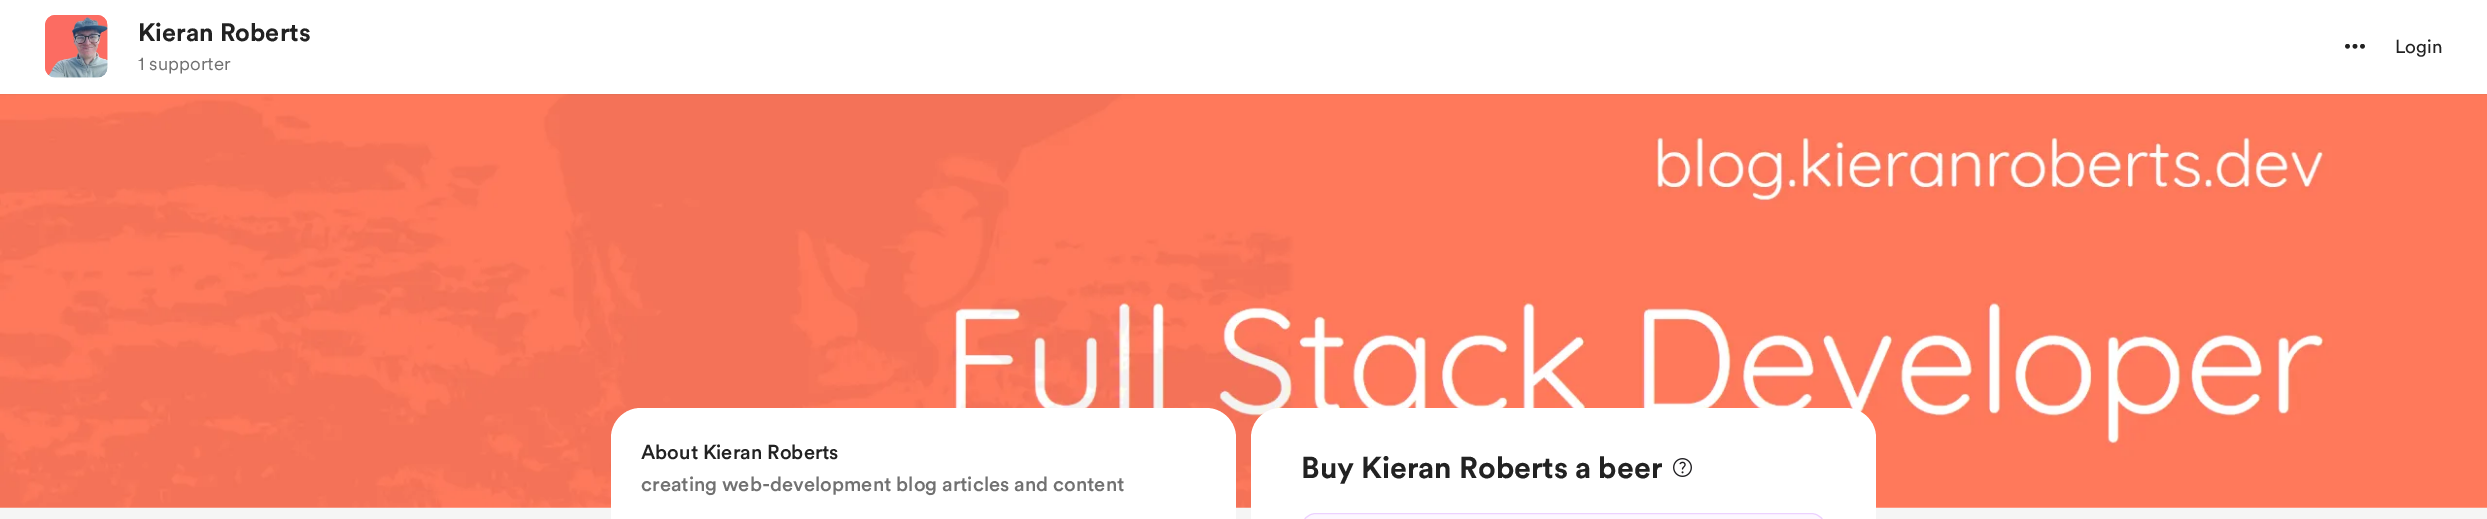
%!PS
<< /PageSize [2487 519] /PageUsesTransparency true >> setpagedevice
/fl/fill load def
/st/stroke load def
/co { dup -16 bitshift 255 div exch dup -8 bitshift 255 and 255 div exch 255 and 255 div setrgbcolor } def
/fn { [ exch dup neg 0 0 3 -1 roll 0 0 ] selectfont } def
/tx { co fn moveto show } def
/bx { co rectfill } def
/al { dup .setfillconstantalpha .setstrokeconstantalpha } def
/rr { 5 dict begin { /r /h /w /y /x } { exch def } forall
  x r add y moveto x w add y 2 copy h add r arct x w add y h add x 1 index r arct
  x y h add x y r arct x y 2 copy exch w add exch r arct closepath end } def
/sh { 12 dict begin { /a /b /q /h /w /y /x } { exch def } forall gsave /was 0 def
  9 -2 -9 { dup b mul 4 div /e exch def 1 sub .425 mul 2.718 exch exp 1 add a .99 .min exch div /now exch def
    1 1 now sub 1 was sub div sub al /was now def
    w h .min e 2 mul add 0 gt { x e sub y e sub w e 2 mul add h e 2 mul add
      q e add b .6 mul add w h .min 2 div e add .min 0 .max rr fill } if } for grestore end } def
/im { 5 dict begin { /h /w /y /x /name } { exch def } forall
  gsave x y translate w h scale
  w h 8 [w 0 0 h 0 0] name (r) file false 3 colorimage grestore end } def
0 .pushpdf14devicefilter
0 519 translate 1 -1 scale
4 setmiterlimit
0 0 2487 519 16#F5F5F5 bx
(media/4.raw) 0 507 2487 1 im
(media/5.raw) 0 94 2487 414 im
16#000000 co
0 1 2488 94 0 .5 .06 sh
0 0 2487 94 16#FFFFFF bx
(media/1.raw) 45 15 63 63 im
(media/2.raw) 45 15 63 63 im
(media/3.raw) 2345 44 20 5 im
611 408 625 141 30 rr fl
1251 408 625 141 30 rr fl
(media/6.raw) 1673 458 19 19 im
16#FCF7FF co
1301 513 525 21 15 rr fl
0.25 al
16#BD5FFF co
1301.5 513.5 524 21 14.5 rr st
1 al
(Kieran Roberts) 138 41 /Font-Bold 25 16#222222 tx
(1 supporter) 138 70 /Font-Regular 18.75 16#717171 tx
(Login) 2395 53 /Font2-Regular 18.75 16#222222 tx
(About Kieran Roberts) 641 459 /Font-Medium 20 16#222222 tx
(creating web-development blog articles and content) 641 491 /Font-Medium 20 16#717171 tx
(Buy Kieran Roberts a beer) 1301 478 /Font-Bold 30 16#222222 tx
.poppdf14devicefilter showpage
